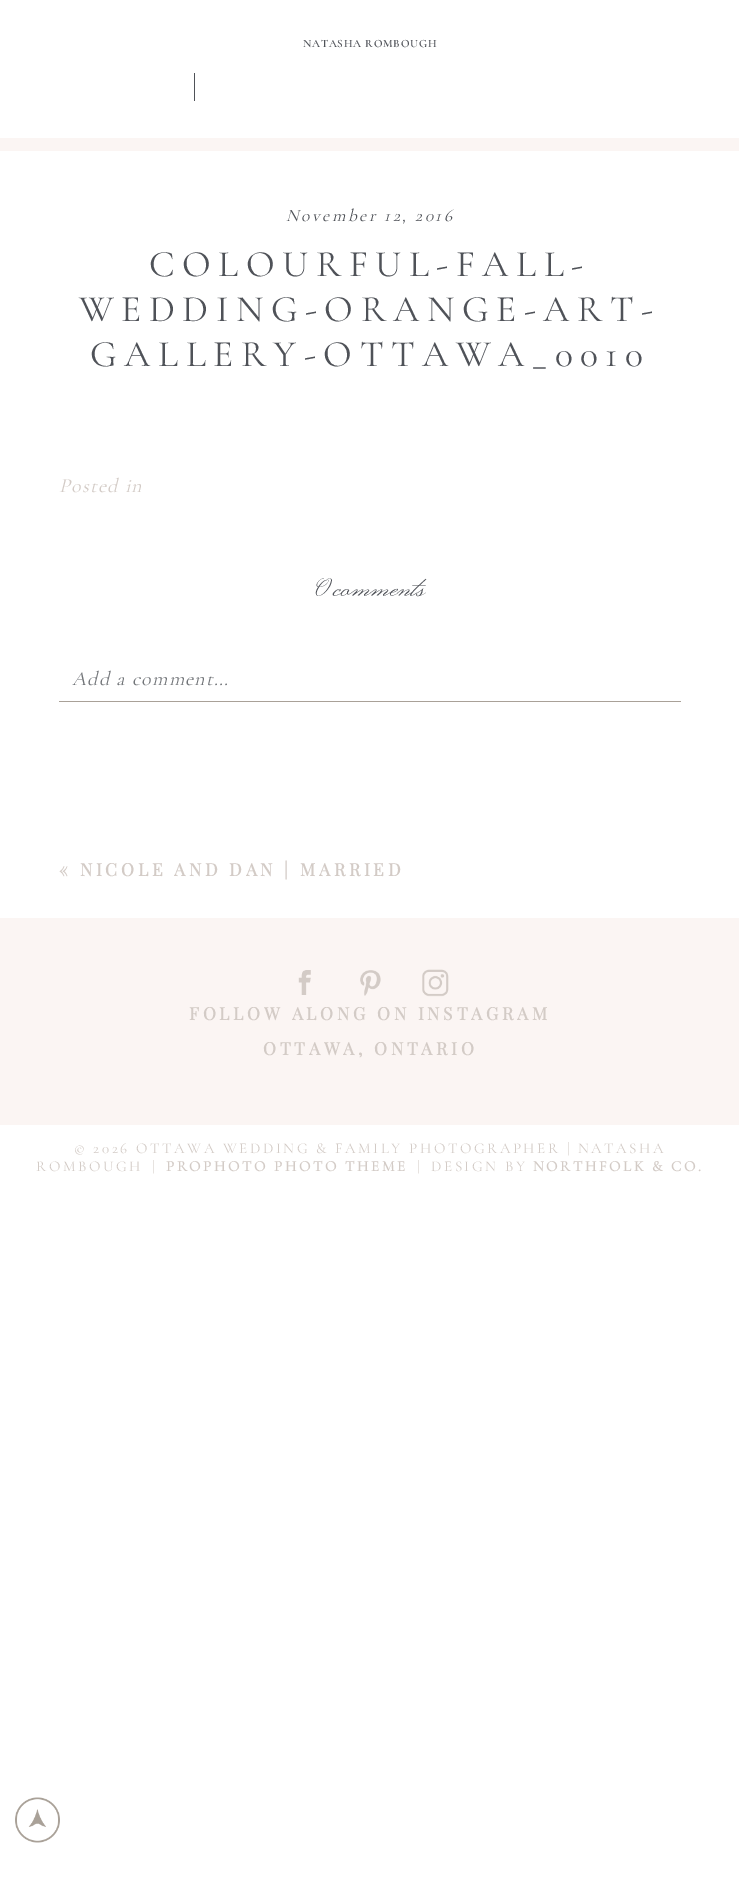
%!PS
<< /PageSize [739 1886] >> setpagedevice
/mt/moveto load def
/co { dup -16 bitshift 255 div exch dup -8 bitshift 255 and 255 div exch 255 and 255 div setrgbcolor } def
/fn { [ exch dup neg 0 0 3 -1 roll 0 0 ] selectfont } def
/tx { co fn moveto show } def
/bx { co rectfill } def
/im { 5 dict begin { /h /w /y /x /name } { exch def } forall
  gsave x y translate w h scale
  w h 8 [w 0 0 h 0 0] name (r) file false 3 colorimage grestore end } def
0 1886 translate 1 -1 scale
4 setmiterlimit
0 0 739 1886 16#FFFFFF bx
194 73 1 28 16#4F5258 bx
0 138 739 13 16#FBF5F3 bx
59 701 622 1 16#A9A198 bx
0 918 739 207 16#FBF5F3 bx
(media/1.raw) 298 970 13 25 im
(media/2.raw) 360 970 21 26 im
(media/3.raw) 422 969 27 28 im
(media/4.raw) 15 1797 45 46 im
/Cormorant-SemiBold 11.25 fn
16#4F5258 co
303 47 mt .75 0 (NATASHA ROMBOUGH) ashow
/CormorantGaramond-LightItalic 17.5 fn
286 221 mt 2.5 0 (November 12, 2016) ashow
/CormorantGaramond-Light 37.5 fn
149 276 mt 7.5 0 (COLOURFUL-FALL-) ashow
79 321 mt 7.5 0 (WEDDING-ORANGE-ART-) ashow
90 366 mt 7.5 0 (GALLERY-OTTAWA_0010) ashow
/CormorantGaramond-LightItalic 20 fn
16#D3CBC6 co
59 492 mt 1.25 0 (Posted in) ashow
(0 comments) 315 595 /MonsieurLaDoulaise-Regular 32.5 16#4F5258 tx
/CormorantGaramond-LightItalic 20 fn
16#727579 co
72 685 mt 1.25 0 (Add a comment...) ashow
/PlayfairDisplay-Bold 17.5 fn
16#D3CBC6 co
59 876 mt 3.7 0 (« NICOLE AND DAN | MARRIED) ashow
189 1020 mt 3.7 0 (FOLLOW ALONG ON INSTAGRAM) ashow
263 1055 mt 3.7 0 (OTTAWA, ONTARIO) ashow
/CormorantGaramond-Light 15 fn
74 1153 mt 2.55 0 (© 2026 OTTAWA WEDDING & FAMILY PHOTOGRAPHER | NATASHA) ashow
36 1171 mt 2.55 0 (ROMBOUGH) ashow
152 1171 mt 2.55 0 (|) ashow
/CormorantGaramond-Bold 15 fn
166 1171 mt 2.55 0 (PROPHOTO PHOTO THEME) ashow
/CormorantGaramond-Light 15 fn
417 1171 mt 2.55 0 (|) ashow
431 1171 mt 2.55 0 (DESIGN BY) ashow
/CormorantGaramond-Bold 15 fn
533 1171 mt 2.55 0 (NORTHFOLK & CO.) ashow
showpage
